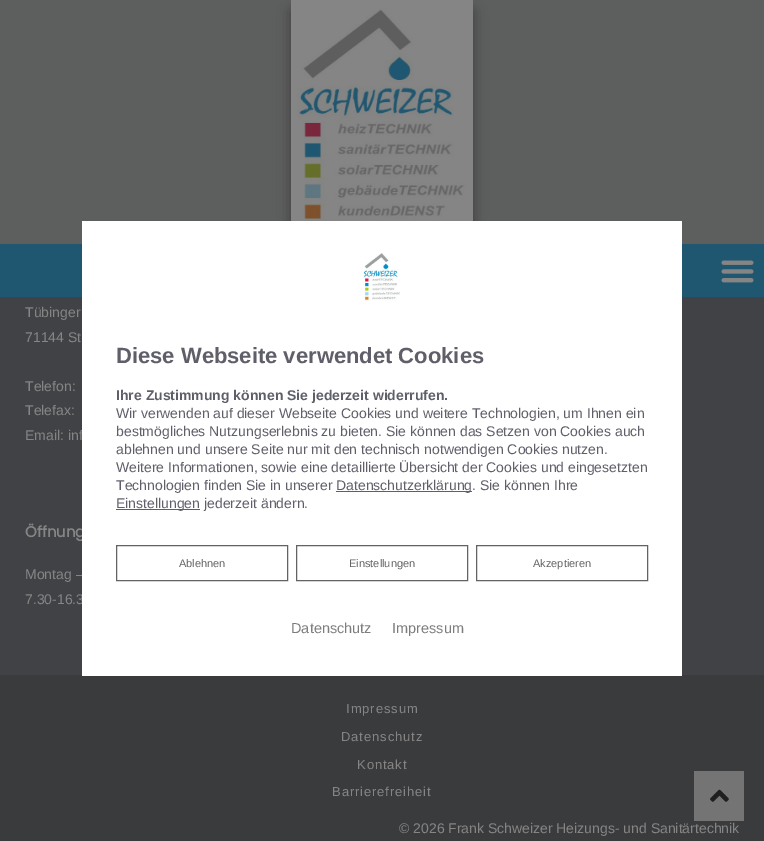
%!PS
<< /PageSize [764 841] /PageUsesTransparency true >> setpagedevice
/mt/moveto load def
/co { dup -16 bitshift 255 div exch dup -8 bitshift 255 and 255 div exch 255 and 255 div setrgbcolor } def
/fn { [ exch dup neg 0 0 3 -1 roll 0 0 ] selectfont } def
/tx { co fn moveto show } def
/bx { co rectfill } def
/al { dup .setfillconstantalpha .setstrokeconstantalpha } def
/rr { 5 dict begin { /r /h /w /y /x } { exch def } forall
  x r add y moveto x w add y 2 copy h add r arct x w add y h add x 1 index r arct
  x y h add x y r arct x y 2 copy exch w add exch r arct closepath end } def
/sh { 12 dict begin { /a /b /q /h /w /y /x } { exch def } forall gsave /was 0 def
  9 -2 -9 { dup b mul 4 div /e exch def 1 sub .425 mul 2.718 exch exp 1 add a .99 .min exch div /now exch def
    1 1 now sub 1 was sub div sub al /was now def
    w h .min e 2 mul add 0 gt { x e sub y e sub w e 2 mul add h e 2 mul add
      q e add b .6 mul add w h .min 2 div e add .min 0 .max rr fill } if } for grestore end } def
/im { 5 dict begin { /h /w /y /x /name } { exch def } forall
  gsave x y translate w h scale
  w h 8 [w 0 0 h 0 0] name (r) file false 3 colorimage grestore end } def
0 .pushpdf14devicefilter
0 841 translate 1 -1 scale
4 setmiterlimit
0 0 764 841 16#404245 bx
0 0 764 244 16#5D5E5E bx
16#1F1F1F co
291 11 182 224 0 7 .5 sh
(media/1.raw) 291 0 182 221 im
0 244 764 53 16#205770 bx
(media/2.raw) 721 260 33 23 im
0 675 764 166 16#393B3D bx
694 771 50 50 16#747474 bx
(media/4.raw) 710 789 19 13 im
(Tübinger) 25 317 /LiberationSans-Regular 14 16#858585 tx
(71144 St) 25 342 /LiberationSans-Regular 14 16#858585 tx
(Telefon:) 25 391 /LiberationSans-Regular 14 16#858585 tx
(Telefax:) 25 415 /LiberationSans-Regular 14 16#858585 tx
(Email: inf) 25 440 /LiberationSans-Regular 14 16#858585 tx
(Öffnung) 25 537 /Poppins-Bold 15 16#858585 tx
(Montag –) 25 579 /LiberationSans-Regular 14 16#858585 tx
(7.30-16.3) 25 604 /LiberationSans-Regular 14 16#858585 tx
/LiberationSans-Regular 13 fn
346 713 mt .9 0 (Impressum) ashow
341 741 mt .9 0 (Datenschutz) ashow
357 769 mt .9 0 (Kontakt) ashow
332 796 mt .9 0 (Barrierefreiheit) ashow
(© 2026 Frank Schweizer Heizungs- und Sanitärtechnik) 399 833 /LiberationSans-Regular 14 16#858585 tx
82 221 600 455 16#FFFFFF bx
(media/3.raw) 363 253 37 48 im
(Diese Webseite verwendet Cookies) 116 363 /LiberationSans-Bold 22 16#5F5F6A tx
(Ihre Zustimmung können Sie jederzeit widerrufen.) 116 400 /LiberationSans-Bold 14 16#5F5F6A tx
(Wir verwenden auf dieser Webseite Cookies und weitere Technologien, um Ihnen ein) 116 418 /LiberationSans-Regular 14 16#5F5F6A tx
(bestmögliches Nutzungserlebnis zu bieten. Sie können das Setzen von Cookies auch) 116 436 /LiberationSans-Regular 14 16#5F5F6A tx
(ablehnen und unsere Seite nur mit den technisch notwendigen Cookies nutzen.) 116 454 /LiberationSans-Regular 14 16#5F5F6A tx
(Weitere Informationen, sowie eine detaillierte Übersicht der Cookies und eingesetzten) 116 472 /LiberationSans-Regular 14 16#5F5F6A tx
(Technologien finden Sie in unserer) 116 490 /LiberationSans-Regular 14 16#5F5F6A tx
336 491 136 1 16#5F5F6A bx
(Datenschutzerklärung. Sie können Ihre) 336 490 /LiberationSans-Regular 14 16#5F5F6A tx
116 509 84 1 16#5F5F6A bx
(Einstellungen jederzeit ändern.) 116 508 /LiberationSans-Regular 14 16#5F5F6A tx
16#636363 co
116.5 545.5 171 35 rectstroke
(Ablehnen) 179 567 /LiberationSans-Regular 11 16#636363 tx
296.5 545.5 171 35 rectstroke
(Einstellungen) 349 567 /LiberationSans-Regular 11 16#636363 tx
476.5 545.5 171 35 rectstroke
(Akzeptieren) 533 567 /LiberationSans-Regular 11 16#636363 tx
(Datenschutz) 291 633 /LiberationSans-Regular 14.5 16#7D7D7D tx
(Impressum) 392 633 /LiberationSans-Regular 14.5 16#7D7D7D tx
.poppdf14devicefilter showpage
